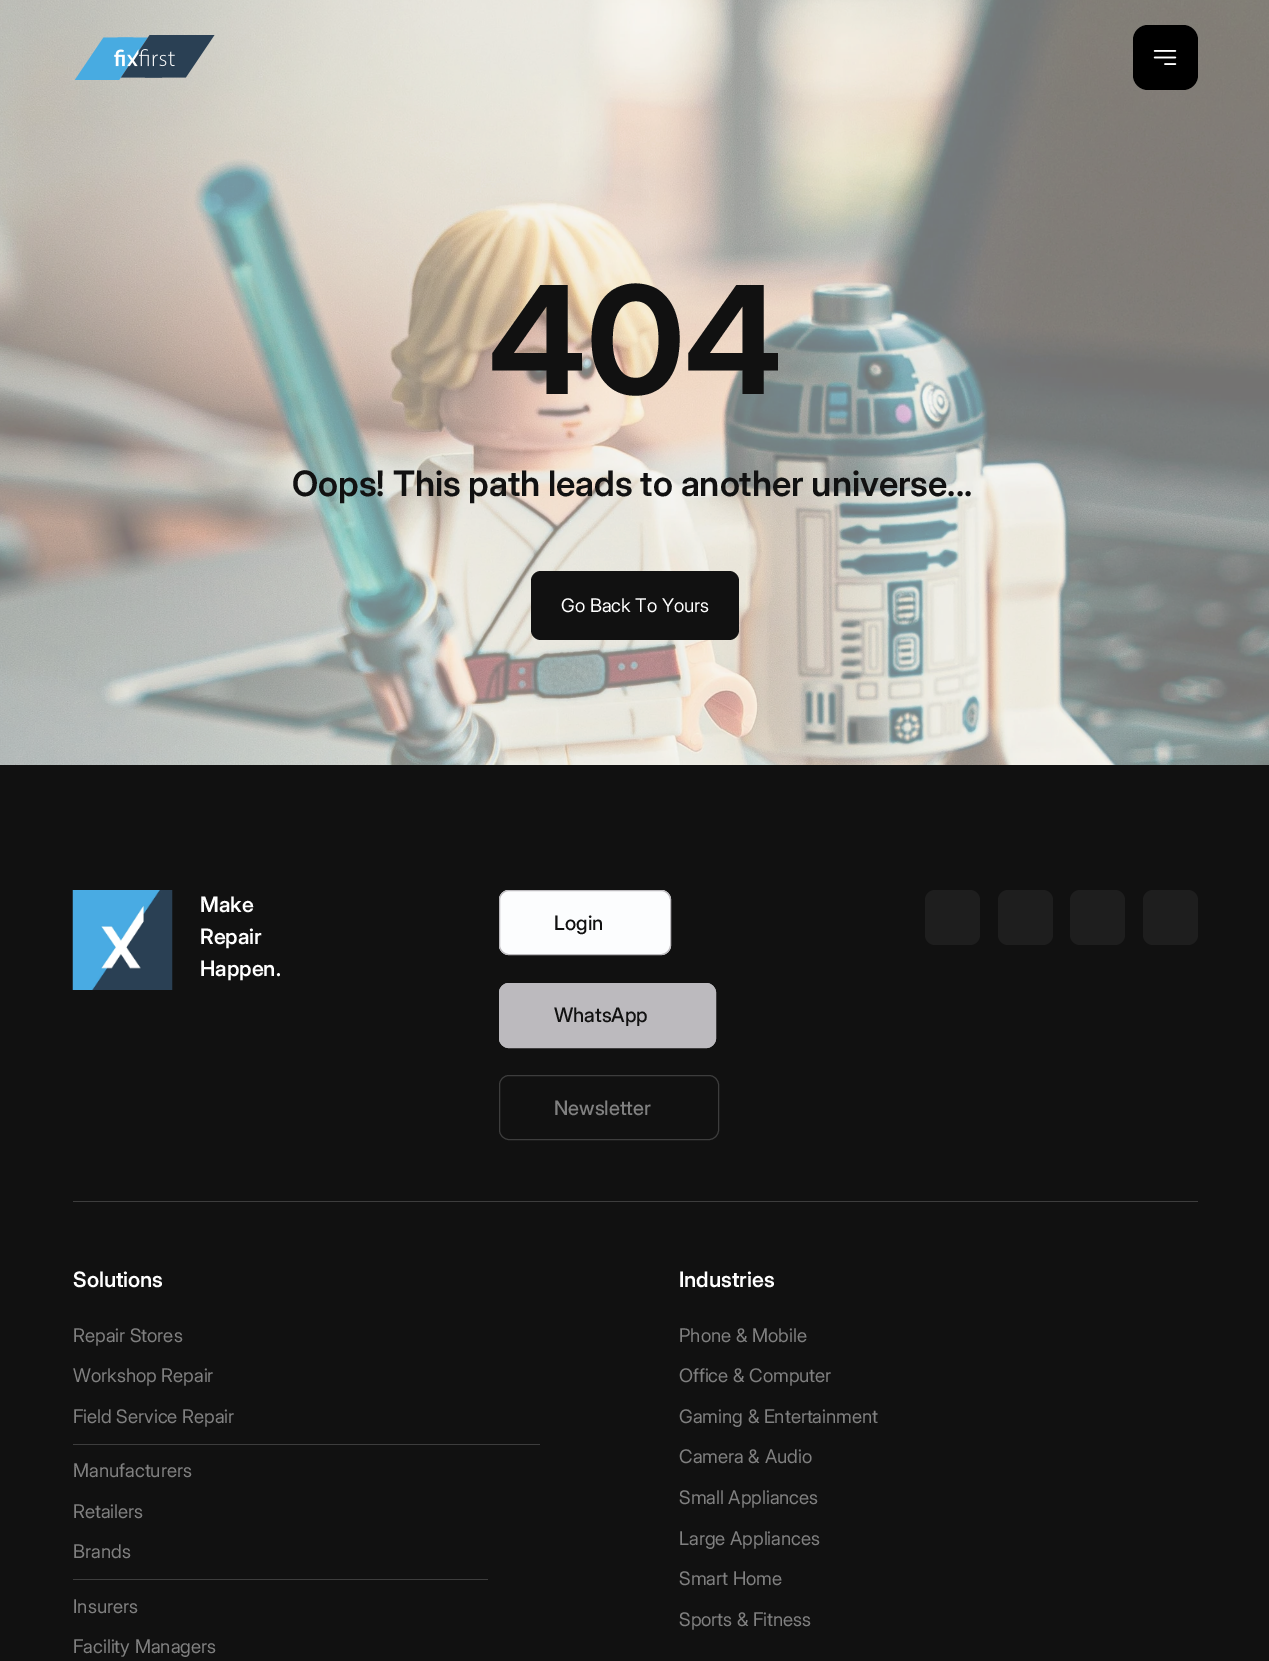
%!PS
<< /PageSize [1269 1661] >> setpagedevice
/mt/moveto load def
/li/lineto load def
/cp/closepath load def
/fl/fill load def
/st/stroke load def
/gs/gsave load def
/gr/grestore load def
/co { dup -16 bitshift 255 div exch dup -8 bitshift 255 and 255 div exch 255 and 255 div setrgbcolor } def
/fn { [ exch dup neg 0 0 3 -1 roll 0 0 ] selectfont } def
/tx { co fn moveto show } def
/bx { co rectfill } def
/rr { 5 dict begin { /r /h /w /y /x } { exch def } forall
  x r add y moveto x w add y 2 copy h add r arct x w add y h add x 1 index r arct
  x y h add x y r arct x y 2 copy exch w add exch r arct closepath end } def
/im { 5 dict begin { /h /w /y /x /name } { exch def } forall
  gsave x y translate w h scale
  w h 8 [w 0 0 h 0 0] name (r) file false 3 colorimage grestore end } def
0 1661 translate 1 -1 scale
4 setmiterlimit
0 0 1269 1661 16#F4F2F1 bx
gs 0 0 mt 1269 0 li 1269 130 li 0 130 li cp clip newpath
<< /ShadingType 2 /ColorSpace /DeviceRGB /Coords [635 0 635 519] /Extend [true true] /Function << /FunctionType 2 /Domain [0 1] /C0 [.949 .941 .933] /C1 [.949 .941 .941] /N 1 >> >> shfill gr
(media/1.raw) 0 0 1269 765 im
(media/2.raw) 74 35 141 45 im
16#000000 co
1133 25 65 65 15 rr fl
(media/3.raw) 1153 50 24 15 im
16#111111 co
531 571 208 69 10 rr fl
0 765 1269 896 16#111111 bx
(media/4.raw) 72 890 101 100 im
16#FCFDFE co
499 890 172 65 10 rr fl
16#BCBABE co
499.5 890.5 171 64 9.5 rr st
499 983 217 65 10 rr fl
499.5 983.5 216 64 9.5 rr st
16#3D3D3D co
499.5 1075.5 219 64 9.5 rr st
16#1E1E1E co
925 890 55 55 10 rr fl
998 890 55 55 10 rr fl
1070 890 55 55 10 rr fl
1143 890 55 55 10 rr fl
73 1201 1125 1 16#3D3D3D bx
73 1444 467 1 16#3D3D3D bx
73 1579 415 1 16#3D3D3D bx
(404) 488 394 /InterDisplay-Bold 150 16#111111 tx
(Oops! This path leads to another universe...) 292 496 /InterDisplay-SemiBold 35 16#111111 tx
(Go Back To Yours) 561 612 /InterDisplay-Regular 18.75 16#FFFFFF tx
(Make) 200 912 /InterDisplay-SemiBold 21.25 16#FFFFFF tx
(Repair) 200 944 /InterDisplay-SemiBold 21.25 16#FFFFFF tx
(Happen.) 200 976 /InterDisplay-SemiBold 21.25 16#FFFFFF tx
(Login) 554 930 /InterDisplay-Medium 20 16#111111 tx
(WhatsApp) 554 1022 /InterDisplay-Medium 20 16#111111 tx
(Newsletter) 554 1115 /InterDisplay-Medium 20 16#808080 tx
(Solutions) 73 1287 /InterDisplay-SemiBold 21.25 16#FFFFFF tx
(Repair Stores) 73 1342 /InterDisplay-Regular 18.75 16#808080 tx
(Workshop Repair) 73 1382 /InterDisplay-Regular 18.75 16#808080 tx
(Field Service Repair) 73 1423 /InterDisplay-Regular 18.75 16#808080 tx
(Manufacturers) 73 1477 /InterDisplay-Regular 18.75 16#808080 tx
(Retailers) 73 1518 /InterDisplay-Regular 18.75 16#808080 tx
(Brands) 73 1558 /InterDisplay-Regular 18.75 16#808080 tx
(Insurers) 73 1613 /InterDisplay-Regular 18.75 16#808080 tx
(Facility Managers) 73 1653 /InterDisplay-Regular 18.75 16#808080 tx
(Industries) 679 1287 /InterDisplay-SemiBold 21.25 16#FFFFFF tx
(Phone & Mobile) 679 1342 /InterDisplay-Regular 18.75 16#808080 tx
(Office & Computer) 679 1382 /InterDisplay-Regular 18.75 16#808080 tx
(Gaming & Entertainment) 679 1423 /InterDisplay-Regular 18.75 16#808080 tx
(Camera & Audio) 679 1463 /InterDisplay-Regular 18.75 16#808080 tx
(Small Appliances) 679 1504 /InterDisplay-Regular 18.75 16#808080 tx
(Large Appliances) 679 1545 /InterDisplay-Regular 18.75 16#808080 tx
(Smart Home) 679 1585 /InterDisplay-Regular 18.75 16#808080 tx
(Sports & Fitness) 679 1626 /InterDisplay-Regular 18.75 16#808080 tx
showpage
